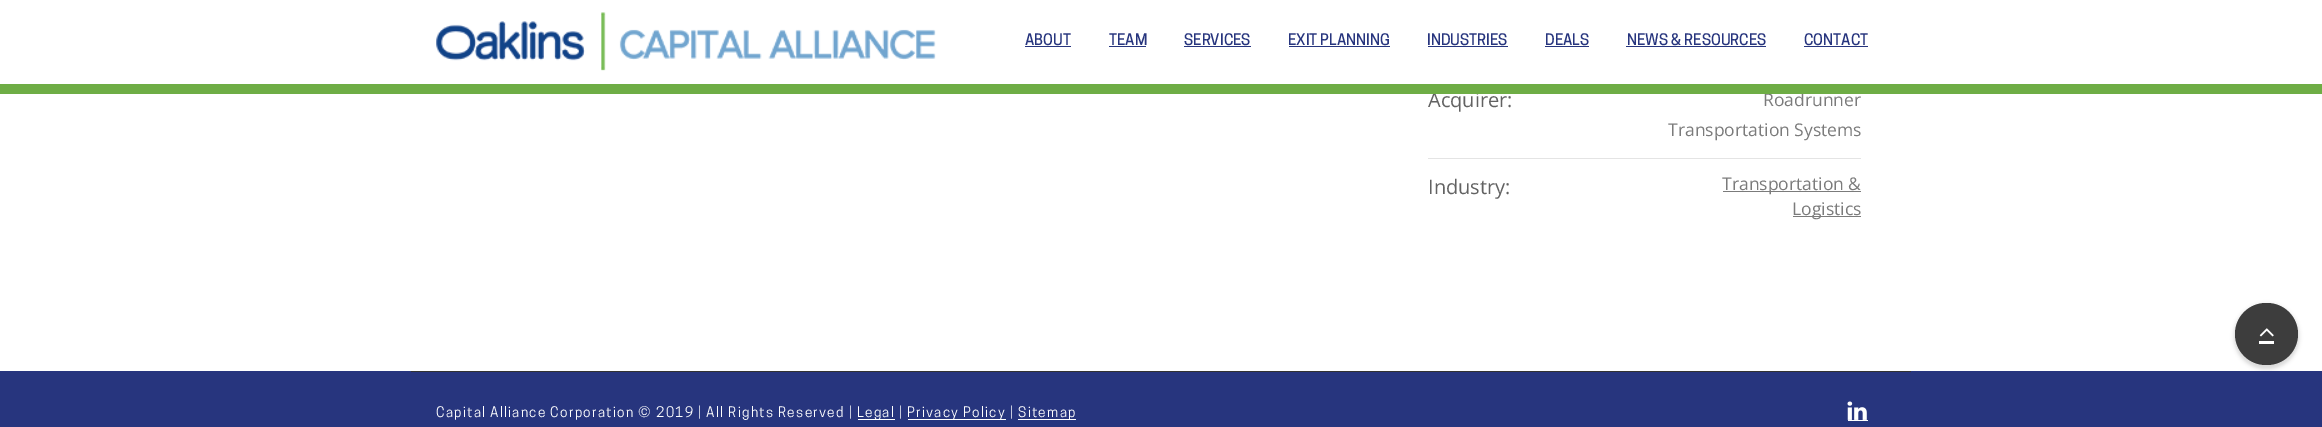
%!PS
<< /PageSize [2322 427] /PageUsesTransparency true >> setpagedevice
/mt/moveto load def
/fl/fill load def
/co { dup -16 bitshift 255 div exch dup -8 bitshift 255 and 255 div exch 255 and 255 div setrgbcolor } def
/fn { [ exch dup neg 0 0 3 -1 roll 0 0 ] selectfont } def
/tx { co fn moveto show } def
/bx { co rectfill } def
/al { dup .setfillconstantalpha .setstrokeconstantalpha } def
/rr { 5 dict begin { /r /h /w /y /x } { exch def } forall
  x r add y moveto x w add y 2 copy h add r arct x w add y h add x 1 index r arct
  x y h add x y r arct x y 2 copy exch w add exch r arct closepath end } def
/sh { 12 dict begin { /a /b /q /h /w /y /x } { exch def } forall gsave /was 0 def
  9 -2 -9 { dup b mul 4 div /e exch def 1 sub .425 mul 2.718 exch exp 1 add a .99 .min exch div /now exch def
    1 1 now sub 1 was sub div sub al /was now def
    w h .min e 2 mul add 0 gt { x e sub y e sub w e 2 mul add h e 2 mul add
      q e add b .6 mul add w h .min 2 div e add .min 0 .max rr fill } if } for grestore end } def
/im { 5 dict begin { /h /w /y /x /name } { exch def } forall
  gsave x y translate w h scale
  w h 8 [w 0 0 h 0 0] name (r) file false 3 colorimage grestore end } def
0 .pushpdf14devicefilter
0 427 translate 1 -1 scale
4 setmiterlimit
0 0 2322 427 16#FFFFFF bx
(media/1.raw) 436 12 500 59 im
1025 46 46 1 16#27357E bx
1109 46 37 1 16#27357E bx
1184 46 67 1 16#27357E bx
1289 46 101 1 16#27357E bx
1428 46 80 1 16#27357E bx
1545 46 44 1 16#27357E bx
1626 46 140 1 16#27357E bx
1804 46 64 1 16#27357E bx
1428 158 433 1 16#E4E4E4 bx
1723 191 138 1 16#7B7B7B bx
1793 216 68 1 16#7B7B7B bx
0 371 2322 56 16#27357E bx
16#000000 co
2234 304 65 65 32.5 2 .15 sh
16#3D3D3D co
2235 303 63 62 31 rr fl
2259 341 15 3 16#FFFFFF bx
(media/2.raw) 2259 328 15 9 im
411 371 1500 1 16#333333 bx
858 419 37 1 16#FFFFFF bx
908 419 98 1 16#FFFFFF bx
1018 419 58 1 16#FFFFFF bx
1848 420 20 1 16#FFFFFF bx
(media/3.raw) 1847 401 20 19 im
(ABOUT) 1025 45 /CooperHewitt-Medium 15 16#27357E tx
(TEAM) 1109 45 /CooperHewitt-Medium 15 16#27357E tx
(SERVICES) 1184 45 /CooperHewitt-Medium 15 16#27357E tx
(EXIT PLANNING) 1288 45 /CooperHewitt-Medium 15 16#27357E tx
(INDUSTRIES) 1427 45 /CooperHewitt-Medium 15 16#27357E tx
(DEALS) 1545 45 /CooperHewitt-Medium 15 16#27357E tx
(NEWS & RESOURCES) 1627 45 /CooperHewitt-Medium 15 16#27357E tx
(CONTACT) 1804 45 /CooperHewitt-Medium 15 16#27357E tx
(Acquirer:) 1428 107 /OpenSans-Regular 20 16#626262 tx
(Roadrunner) 1763 106 /OpenSans-Regular 17.5 16#7B7B7B tx
0 84 2322 10 16#6EAD45 bx
(Transportation Systems) 1668 136 /OpenSans-Regular 17.5 16#7B7B7B tx
(Industry:) 1428 194 /OpenSans-Regular 20 16#626262 tx
(Transportation &) 1722 190 /OpenSans-Regular 17.5 16#7B7B7B tx
(Logistics) 1792 215 /OpenSans-Regular 17.5 16#7B7B7B tx
/CooperHewitt-Regular 13.75 fn
16#FFFFFF co
436 417 mt 1.25 0 (Capital Alliance Corporation © 2019 | All Rights Reserved |) ashow
857 417 mt 1.25 0 (Legal |) ashow
907 417 mt 1.25 0 (Privacy Policy |) ashow
1018 417 mt 1.25 0 (Sitemap) ashow
.poppdf14devicefilter showpage
